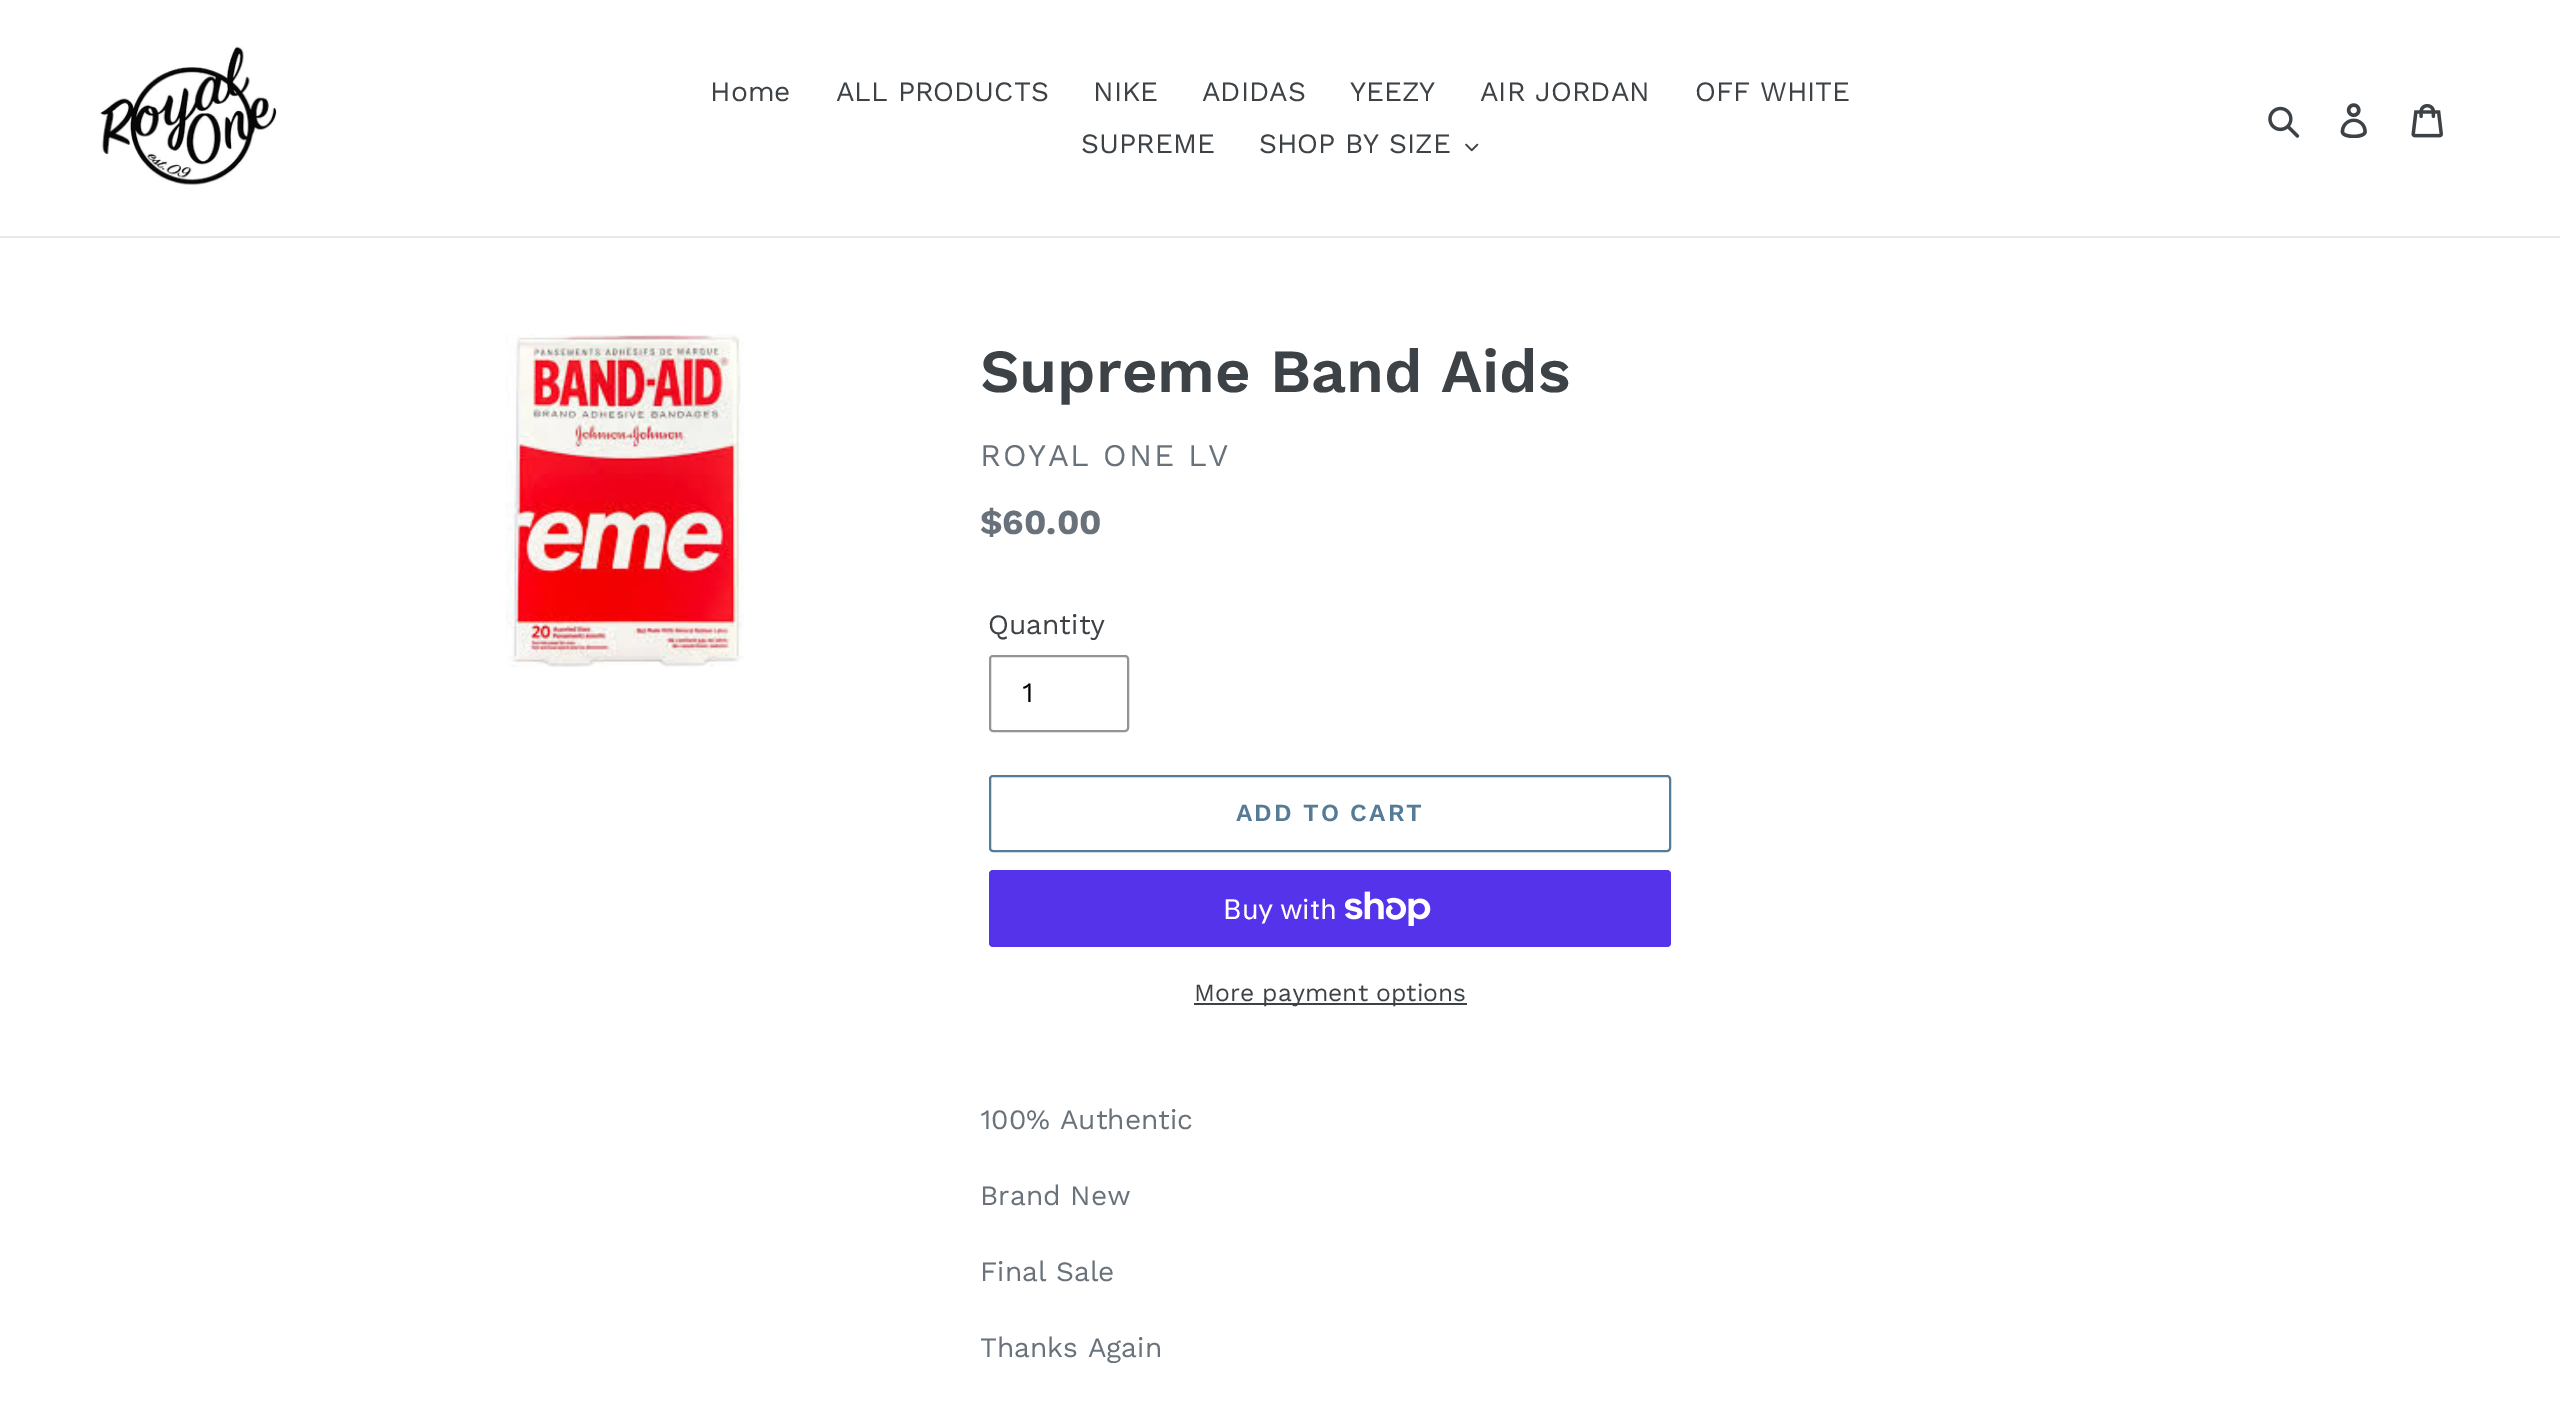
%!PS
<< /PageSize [2560 1418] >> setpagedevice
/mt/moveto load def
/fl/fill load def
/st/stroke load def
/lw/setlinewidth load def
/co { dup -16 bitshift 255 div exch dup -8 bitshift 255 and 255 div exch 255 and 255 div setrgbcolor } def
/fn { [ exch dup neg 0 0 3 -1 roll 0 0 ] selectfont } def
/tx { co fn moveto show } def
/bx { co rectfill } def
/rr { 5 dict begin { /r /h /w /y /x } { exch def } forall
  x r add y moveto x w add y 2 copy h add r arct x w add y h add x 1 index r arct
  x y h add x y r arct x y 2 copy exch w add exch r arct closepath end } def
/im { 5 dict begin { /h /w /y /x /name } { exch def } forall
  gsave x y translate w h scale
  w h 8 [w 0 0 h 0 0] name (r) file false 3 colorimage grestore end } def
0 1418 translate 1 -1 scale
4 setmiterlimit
0 0 2560 1418 16#FFFFFF bx
0 236 2560 2 16#E8E9EB bx
(media/1.raw) 100 46 177 139 im
(media/2.raw) 1465 143 14 9 im
(media/3.raw) 2268 106 32 32 im
(media/4.raw) 2340 103 27 35 im
(media/5.raw) 2411 103 32 35 im
(media/6.raw) 505 334 239 333 im
16#949494 co
2 lw
990 656 138 75 3 rr st
16#557B97 co
990 776 680 75 3 rr st
16#5433EB co
989 870 682 77 4 rr fl
(media/7.raw) 1345 891 86 35 im
1194 1003 273 2 16#3D4246 bx
(Home) 710 101 /WorkSans-Regular 28 16#3D4246 tx
(ALL PRODUCTS) 836 101 /WorkSans-Regular 28 16#3D4246 tx
(NIKE) 1093 101 /WorkSans-Regular 28 16#3D4246 tx
(ADIDAS) 1202 101 /WorkSans-Regular 28 16#3D4246 tx
(YEEZY) 1350 101 /WorkSans-Regular 28 16#3D4246 tx
(AIR JORDAN) 1480 101 /WorkSans-Regular 28 16#3D4246 tx
(OFF WHITE) 1695 101 /WorkSans-Regular 28 16#3D4246 tx
(SUPREME) 1081 153 /WorkSans-Regular 28 16#3D4246 tx
(SHOP BY SIZE) 1259 153 /WorkSans-Regular 28 16#3D4246 tx
(Supreme Band Aids) 980 392 /WorkSans-SemiBold 61.25 16#3D4246 tx
/WorkSans-Regular 31.5 fn
16#69727B co
980 466 mt 1.75 0 (ROYAL ONE LV) ashow
($60.00) 980 534 /WorkSans-Bold 35 16#69727B tx
(Quantity) 988 634 /WorkSans-Regular 28 16#3D4246 tx
(1) 1022 702 /WorkSans-Regular 28 16#000000 tx
/WorkSans-SemiBold 24.5 fn
16#557B97 co
1236 821 mt 2 0 (ADD TO CART) ashow
(Buy with) 1223 919 /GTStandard-Regular 28 16#FFFFFF tx
(More payment options) 1194 1001 /WorkSans-Regular 24.5 16#3D4246 tx
(100% Authentic) 980 1129 /WorkSans-Regular 28 16#69727B tx
(Brand New) 980 1205 /WorkSans-Regular 28 16#69727B tx
(Final Sale) 980 1281 /WorkSans-Regular 28 16#69727B tx
(Thanks Again) 980 1357 /WorkSans-Regular 28 16#69727B tx
showpage
